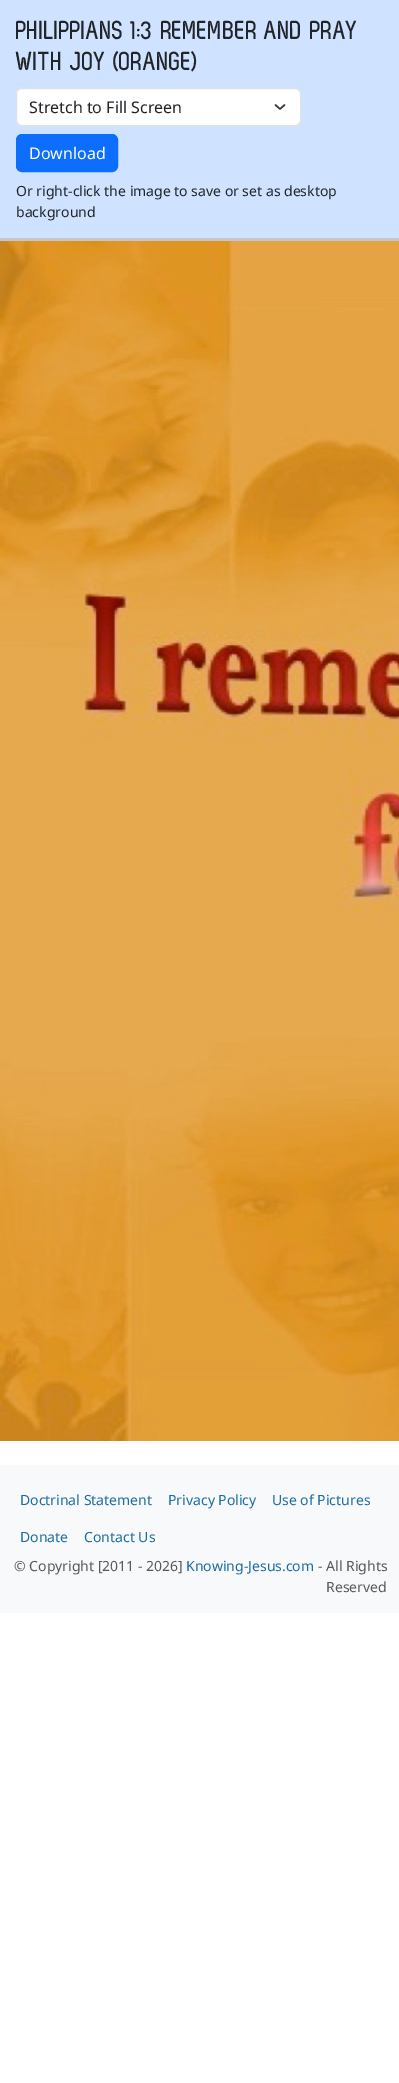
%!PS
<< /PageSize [399 2083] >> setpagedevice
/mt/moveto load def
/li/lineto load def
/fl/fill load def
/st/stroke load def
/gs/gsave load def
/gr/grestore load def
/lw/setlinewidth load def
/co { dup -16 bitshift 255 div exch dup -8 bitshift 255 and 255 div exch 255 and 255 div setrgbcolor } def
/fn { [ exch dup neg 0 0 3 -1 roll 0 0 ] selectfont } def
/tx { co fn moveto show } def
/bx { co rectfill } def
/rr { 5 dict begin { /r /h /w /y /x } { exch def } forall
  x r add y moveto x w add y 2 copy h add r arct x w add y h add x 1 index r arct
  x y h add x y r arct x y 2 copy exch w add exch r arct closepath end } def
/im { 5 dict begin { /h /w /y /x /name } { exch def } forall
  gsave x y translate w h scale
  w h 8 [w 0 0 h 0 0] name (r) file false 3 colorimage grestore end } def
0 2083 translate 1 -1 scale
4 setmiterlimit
0 0 399 2083 16#FFFFFF bx
0 0 399 238 16#CFE2FF bx
0 238 399 3 16#C4C8CB bx
16#FFFFFF co
16 88 285 38 6 rr fl
16#343A40 co
1.5 lw
1 setlinecap
1 setlinejoin
275.5 105 mt 280 109 li 284.5 105 li st
16#DEE2E6 co
1 lw
0 setlinecap
0 setlinejoin
16.5 88.5 284 37 5.5 rr st
16#0D6EFD co
16.5 134.5 101 37 5.5 rr gs fl gr
st
(media/1.raw) 0 241 399 1200 im
0 1465 399 148 16#F8F9FA bx
(PHILIPPIANS 1:3 REMEMBER AND PRAY) 16 39 /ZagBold-Bold 26 16#212529 tx
(WITH JOY \(ORANGE\)) 16 70 /ZagBold-Bold 26 16#212529 tx
(Stretch to Fill Screen) 29 113 /NotoSans-Regular 16 16#212529 tx
(Download) 29 159 /NotoSans-Regular 16 16#FFFFFF tx
(Or right-click the image to save or set as desktop) 16 196 /NotoSans-Regular 14 16#212529 tx
(background) 16 217 /NotoSans-Regular 14 16#212529 tx
(Doctrinal Statement) 20 1505 /NotoSans-Regular 14 16#1C6EA0 tx
(Privacy Policy) 168 1505 /NotoSans-Regular 14 16#1C6EA0 tx
(Use of Pictures) 272 1505 /NotoSans-Regular 14 16#1C6EA0 tx
(Donate) 20 1542 /NotoSans-Regular 14 16#1C6EA0 tx
(Contact Us) 84 1542 /NotoSans-Regular 14 16#1C6EA0 tx
(© Copyright [2011 - 2026]) 14 1571 /NotoSans-Regular 14 16#575A5D tx
(Knowing-Jesus.com) 186 1571 /NotoSans-Regular 14 16#1C6EA0 tx
(- All Rights) 318 1571 /NotoSans-Regular 14 16#575A5D tx
(Reserved) 326 1592 /NotoSans-Regular 14 16#575A5D tx
showpage
